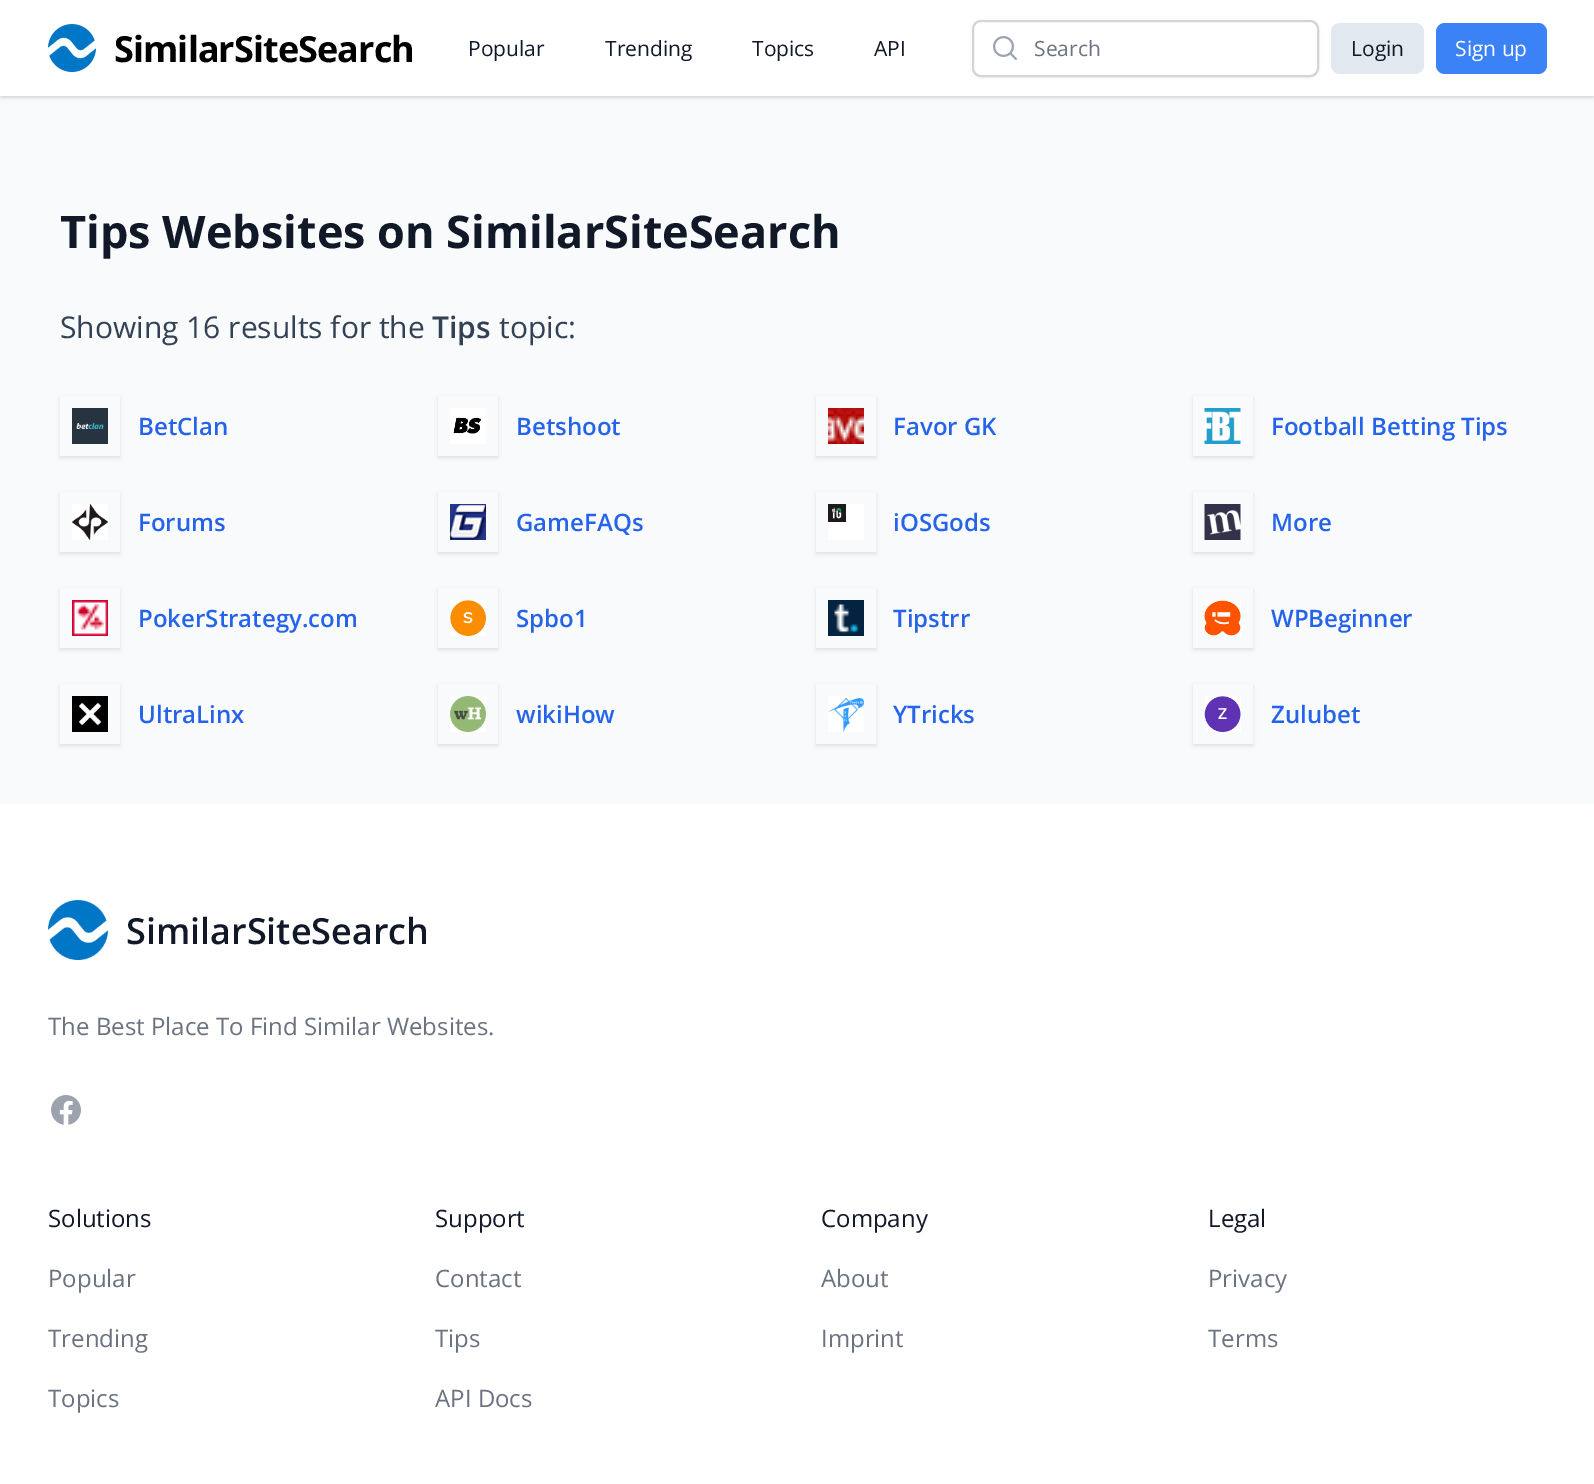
%!PS
<< /PageSize [1594 1484] /PageUsesTransparency true >> setpagedevice
/mt/moveto load def
/li/lineto load def
/cp/closepath load def
/fl/fill load def
/st/stroke load def
/gs/gsave load def
/gr/grestore load def
/lw/setlinewidth load def
/co { dup -16 bitshift 255 div exch dup -8 bitshift 255 and 255 div exch 255 and 255 div setrgbcolor } def
/fn { [ exch dup neg 0 0 3 -1 roll 0 0 ] selectfont } def
/tx { co fn moveto show } def
/bx { co rectfill } def
/al { dup .setfillconstantalpha .setstrokeconstantalpha } def
/rr { 5 dict begin { /r /h /w /y /x } { exch def } forall
  x r add y moveto x w add y 2 copy h add r arct x w add y h add x 1 index r arct
  x y h add x y r arct x y 2 copy exch w add exch r arct closepath end } def
/sh { 12 dict begin { /a /b /q /h /w /y /x } { exch def } forall gsave /was 0 def
  9 -2 -9 { dup b mul 4 div /e exch def 1 sub .425 mul 2.718 exch exp 1 add a .99 .min exch div /now exch def
    1 1 now sub 1 was sub div sub al /was now def
    w h .min e 2 mul add 0 gt { x e sub y e sub w e 2 mul add h e 2 mul add
      q e add b .6 mul add w h .min 2 div e add .min 0 .max rr fill } if } for grestore end } def
/im { 5 dict begin { /h /w /y /x /name } { exch def } forall
  gsave x y translate w h scale
  w h 8 [w 0 0 h 0 0] name (r) file false 3 colorimage grestore end } def
0 .pushpdf14devicefilter
0 1484 translate 1 -1 scale
4 setmiterlimit
0 0 1594 1484 16#F8FAFC bx
16#000000 co
2 3 1591 93 0 1.5 .1 sh
0 2 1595 96 0 2 .1 sh
0 0 1594 96 16#FFFFFF bx
(media/1.raw) 48 24 48 48 im
16#000000 co
972 21 347 57 9 1.5 .05 sh
16#FFFFFF co
973 21 345 55 8 rr gs fl gr
16#D1D5DB co
2 lw
st
(media/2.raw) 993 36 24 24 im
16#E2E8F0 co
1331 23 93 51 9 rr fl
16#3B82F6 co
1436 23 111 51 9 rr fl
gs
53 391 mt 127 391 li 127 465 li 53 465 li cp 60 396 mt 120 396 li 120 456 li 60 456 li cp eoclip newpath
16#000000 co
60 398 60 60 0 2 .1 sh
gr
(media/3.raw) 72 408 36 36 im
gs
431 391 mt 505 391 li 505 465 li 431 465 li cp 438 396 mt 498 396 li 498 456 li 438 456 li cp eoclip newpath
16#000000 co
438 398 60 60 0 2 .1 sh
gr
450 408 36 36 16#FFFFFF bx
(media/4.raw) 453 417 28 17 im
gs
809 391 mt 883 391 li 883 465 li 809 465 li cp 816 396 mt 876 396 li 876 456 li 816 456 li cp eoclip newpath
16#000000 co
816 398 60 60 0 2 .1 sh
gr
(media/5.raw) 828 408 36 36 im
gs
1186 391 mt 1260 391 li 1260 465 li 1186 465 li cp 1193 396 mt 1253 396 li 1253 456 li 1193 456 li cp eoclip newpath
16#000000 co
1193 398 60 60 0 2 .1 sh
gr
1240 408 1 36 16#FFFFFF bx
(media/6.raw) 1204 408 37 36 im
gs
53 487 mt 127 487 li 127 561 li 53 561 li cp 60 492 mt 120 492 li 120 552 li 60 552 li cp eoclip newpath
16#000000 co
60 494 60 60 0 2 .1 sh
gr
72 504 36 36 16#FFFFFF bx
(media/7.raw) 72 504 36 36 im
gs
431 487 mt 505 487 li 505 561 li 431 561 li cp 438 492 mt 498 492 li 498 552 li 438 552 li cp eoclip newpath
16#000000 co
438 494 60 60 0 2 .1 sh
gr
(media/8.raw) 450 504 36 36 im
gs
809 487 mt 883 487 li 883 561 li 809 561 li cp 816 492 mt 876 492 li 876 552 li 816 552 li cp eoclip newpath
16#000000 co
816 494 60 60 0 2 .1 sh
gr
828 504 36 36 16#FFFFFF bx
(media/9.raw) 828 504 18 18 im
gs
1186 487 mt 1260 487 li 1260 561 li 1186 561 li cp 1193 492 mt 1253 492 li 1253 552 li 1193 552 li cp eoclip newpath
16#000000 co
1193 494 60 60 0 2 .1 sh
gr
1240 504 1 36 16#FFFFFF bx
(media/10.raw) 1204 504 37 36 im
gs
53 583 mt 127 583 li 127 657 li 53 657 li cp 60 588 mt 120 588 li 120 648 li 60 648 li cp eoclip newpath
16#000000 co
60 590 60 60 0 2 .1 sh
gr
(media/11.raw) 72 600 36 36 im
gs
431 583 mt 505 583 li 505 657 li 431 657 li cp 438 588 mt 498 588 li 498 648 li 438 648 li cp eoclip newpath
16#000000 co
438 590 60 60 0 2 .1 sh
gr
450 600 36 36 16#FFFFFF bx
(media/12.raw) 450 600 36 36 im
gs
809 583 mt 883 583 li 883 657 li 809 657 li cp 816 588 mt 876 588 li 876 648 li 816 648 li cp eoclip newpath
16#000000 co
816 590 60 60 0 2 .1 sh
gr
(media/13.raw) 828 600 36 36 im
gs
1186 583 mt 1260 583 li 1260 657 li 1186 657 li cp 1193 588 mt 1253 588 li 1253 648 li 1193 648 li cp eoclip newpath
16#000000 co
1193 590 60 60 0 2 .1 sh
gr
1205 600 36 36 16#FFFFFF bx
(media/14.raw) 1204 600 37 36 im
gs
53 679 mt 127 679 li 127 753 li 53 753 li cp 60 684 mt 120 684 li 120 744 li 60 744 li cp eoclip newpath
16#000000 co
60 686 60 60 0 2 .1 sh
gr
(media/15.raw) 72 696 36 36 im
gs
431 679 mt 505 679 li 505 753 li 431 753 li cp 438 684 mt 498 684 li 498 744 li 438 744 li cp eoclip newpath
16#000000 co
438 686 60 60 0 2 .1 sh
gr
450 696 36 36 16#FFFFFF bx
(media/16.raw) 450 696 36 36 im
gs
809 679 mt 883 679 li 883 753 li 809 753 li cp 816 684 mt 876 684 li 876 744 li 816 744 li cp eoclip newpath
16#000000 co
816 686 60 60 0 2 .1 sh
gr
828 696 36 36 16#FFFFFF bx
(media/17.raw) 828 697 36 35 im
gs
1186 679 mt 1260 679 li 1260 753 li 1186 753 li cp 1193 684 mt 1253 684 li 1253 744 li 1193 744 li cp eoclip newpath
16#000000 co
1193 686 60 60 0 2 .1 sh
gr
1205 696 36 36 16#FFFFFF bx
(media/18.raw) 1204 696 37 36 im
0 804 1594 680 16#FFFFFF bx
(media/19.raw) 48 900 60 60 im
(media/20.raw) 51 1095 30 30 im
/OpenSans-Bold 36 fn
16#000000 co
114 62 mt -.9 0 (SimilarSiteSearch) ashow
(Popular) 468 56 /OpenSans-Regular 21 16#111827 tx
(Trending) 605 56 /OpenSans-Regular 21 16#111827 tx
(Topics) 752 56 /OpenSans-Regular 21 16#111827 tx
(API) 874 56 /OpenSans-Regular 21 16#111827 tx
(Search) 1034 56 /OpenSans-Regular 21 16#6B7280 tx
(Login) 1351 56 /OpenSans-Regular 21 16#111827 tx
(Sign up) 1455 56 /OpenSans-Regular 21 16#FFFFFF tx
(Tips Websites on SimilarSiteSearch) 60 248 /OpenSans-Bold 45 16#111827 tx
(Showing 16 results for the) 60 338 /OpenSans-Regular 30 16#334155 tx
(Tips) 432 338 /OpenSans-SemiBold 30 16#334155 tx
(topic:) 499 338 /OpenSans-Regular 30 16#334155 tx
(BetClan) 138 435 /OpenSans-SemiBold 24 16#2563EB tx
(Betshoot) 516 435 /OpenSans-SemiBold 24 16#2563EB tx
(Favor GK) 893 435 /OpenSans-SemiBold 24 16#2563EB tx
(Football Betting Tips) 1271 435 /OpenSans-SemiBold 24 16#2563EB tx
(Forums) 138 531 /OpenSans-SemiBold 24 16#2563EB tx
(GameFAQs) 516 531 /OpenSans-SemiBold 24 16#2563EB tx
(iOSGods) 893 531 /OpenSans-SemiBold 24 16#2563EB tx
(More) 1271 531 /OpenSans-SemiBold 24 16#2563EB tx
(PokerStrategy.com) 138 627 /OpenSans-SemiBold 24 16#2563EB tx
(Spbo1) 516 627 /OpenSans-SemiBold 24 16#2563EB tx
(Tipstrr) 893 627 /OpenSans-SemiBold 24 16#2563EB tx
(WPBeginner) 1271 627 /OpenSans-SemiBold 24 16#2563EB tx
(UltraLinx) 138 723 /OpenSans-SemiBold 24 16#2563EB tx
(wikiHow) 516 723 /OpenSans-SemiBold 24 16#2563EB tx
(YTricks) 893 723 /OpenSans-SemiBold 24 16#2563EB tx
(Zulubet) 1271 723 /OpenSans-SemiBold 24 16#2563EB tx
(SimilarSiteSearch) 126 944 /OpenSans-SemiBold 36 16#111827 tx
(The Best Place To Find Similar Websites.) 48 1035 /OpenSans-Regular 24 16#6B7280 tx
(Solutions) 48 1227 /OpenSans-Regular 24 16#111827 tx
(Popular) 48 1287 /OpenSans-Regular 24 16#6B7280 tx
(Trending) 48 1347 /OpenSans-Regular 24 16#6B7280 tx
(Topics) 48 1407 /OpenSans-Regular 24 16#6B7280 tx
(Support) 435 1227 /OpenSans-Regular 24 16#111827 tx
(Contact) 435 1287 /OpenSans-Regular 24 16#6B7280 tx
(Tips) 435 1347 /OpenSans-Regular 24 16#6B7280 tx
(API Docs) 435 1407 /OpenSans-Regular 24 16#6B7280 tx
(Company) 821 1227 /OpenSans-Regular 24 16#111827 tx
(About) 821 1287 /OpenSans-Regular 24 16#6B7280 tx
(Imprint) 821 1347 /OpenSans-Regular 24 16#6B7280 tx
(Legal) 1208 1227 /OpenSans-Regular 24 16#111827 tx
(Privacy) 1208 1287 /OpenSans-Regular 24 16#6B7280 tx
(Terms) 1208 1347 /OpenSans-Regular 24 16#6B7280 tx
.poppdf14devicefilter showpage
